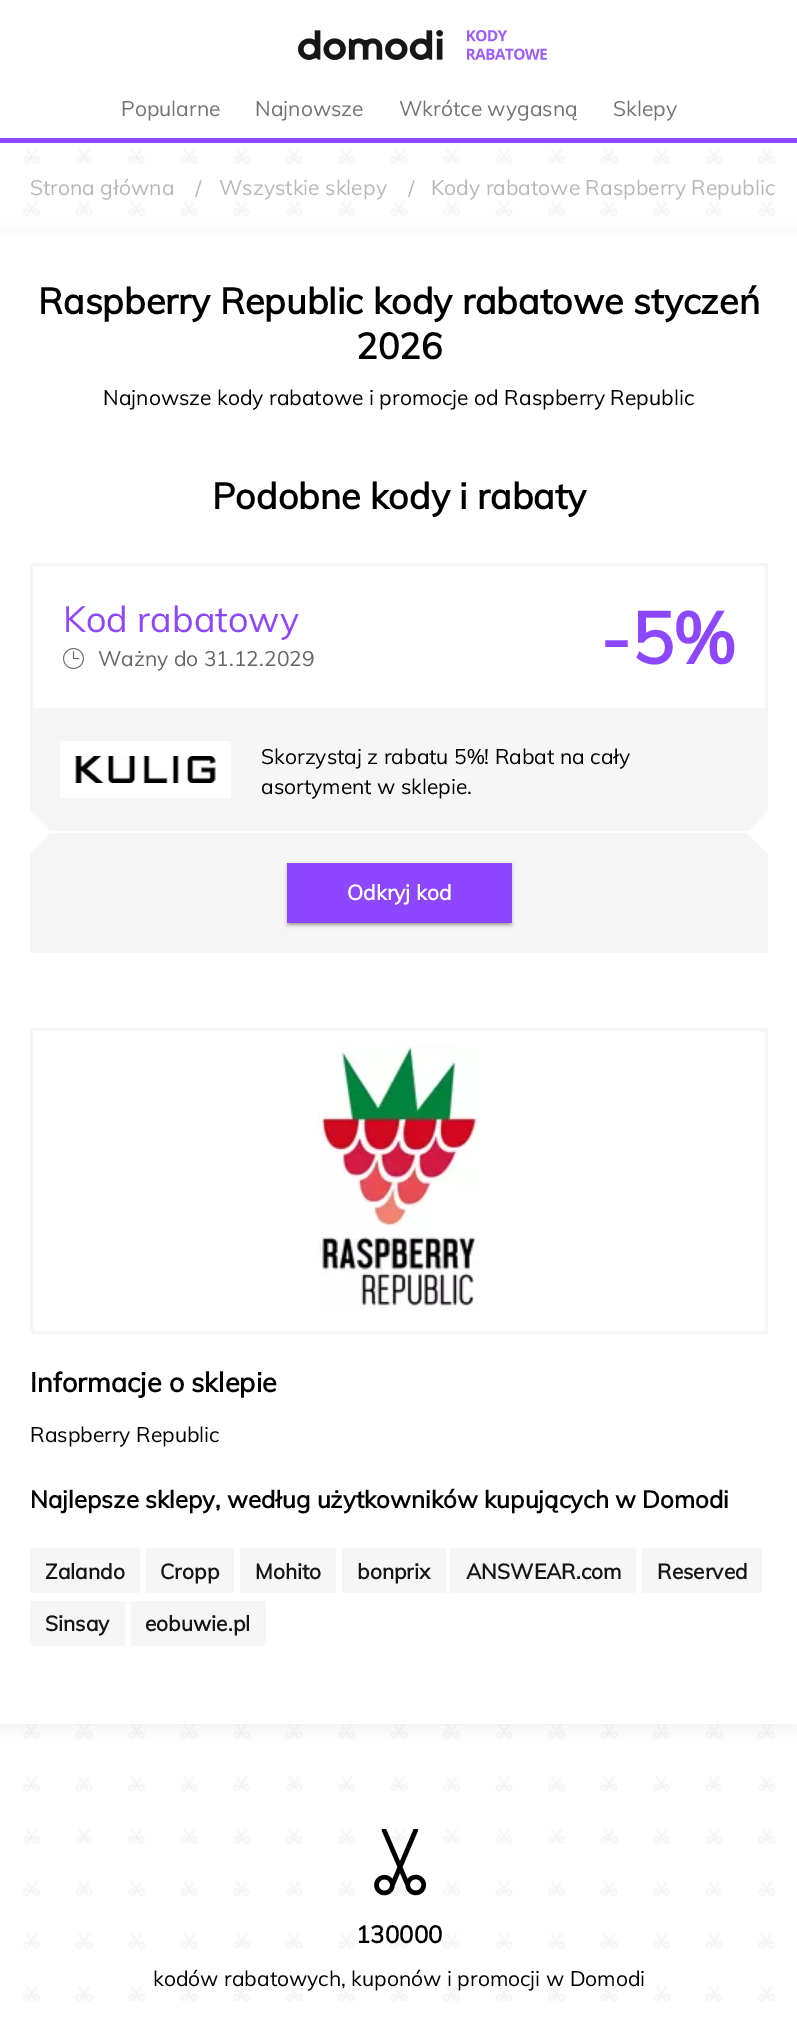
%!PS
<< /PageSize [797 2029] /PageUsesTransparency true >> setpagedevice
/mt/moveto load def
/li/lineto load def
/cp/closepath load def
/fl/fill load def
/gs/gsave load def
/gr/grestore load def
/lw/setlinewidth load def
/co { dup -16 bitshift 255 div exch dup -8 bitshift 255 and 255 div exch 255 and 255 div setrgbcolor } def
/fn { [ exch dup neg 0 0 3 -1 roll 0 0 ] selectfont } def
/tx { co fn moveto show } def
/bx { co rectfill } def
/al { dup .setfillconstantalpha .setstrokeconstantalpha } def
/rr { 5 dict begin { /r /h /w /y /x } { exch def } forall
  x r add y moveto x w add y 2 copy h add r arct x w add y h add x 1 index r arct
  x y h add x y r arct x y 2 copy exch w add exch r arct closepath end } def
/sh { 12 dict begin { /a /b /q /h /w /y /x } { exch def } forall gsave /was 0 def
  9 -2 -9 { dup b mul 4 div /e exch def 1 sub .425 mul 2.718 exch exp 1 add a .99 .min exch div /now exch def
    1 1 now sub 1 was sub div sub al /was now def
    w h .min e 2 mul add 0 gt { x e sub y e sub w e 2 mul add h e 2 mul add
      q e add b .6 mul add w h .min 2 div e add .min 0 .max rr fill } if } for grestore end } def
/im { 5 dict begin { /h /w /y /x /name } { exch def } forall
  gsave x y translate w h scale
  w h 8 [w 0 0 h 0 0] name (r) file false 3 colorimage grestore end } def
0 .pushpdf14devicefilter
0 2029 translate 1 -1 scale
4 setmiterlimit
0 0 797 2029 16#FFFFFF bx
(media/1.raw) 0 143 797 1886 im
0 138 797 5 16#8D47FF bx
(media/2.raw) 298 30 145 30 im
(media/3.raw) 467 30 80 30 im
16#000000 co
0 237 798 1491 0 10 .06 sh
0 233 797 1491 16#FFFFFF bx
30 711 738 242 16#F6F6F7 bx
3 lw
31.5 564.5 735 145 rectstroke
(media/4.raw) 63 648 21 21 im
60 741 171 57 16#FFFFFF bx
(media/5.raw) 75 756 141 27 im
50 831 699 2 16#FFFFFF bx
gs
30 563 738 390 rectclip
9 832 mt 30 811 li 51 832 li 30 854 li cp fl
747 833 mt 768 811 li 789 832 li 768 854 li cp fl
gr
16#000000 co
287 864 225 60 0 2 .12 sh
290 870 219 54 0 1 .2 sh
287 866 225 60 0 1.5 .14 sh
287 863 225 60 16#8D47FF bx
16#F6F6F7 co
31.5 1029.5 735 303 rectstroke
(media/6.raw) 318 1045 163 265 im
30 1548 110 45 16#F6F6F7 bx
146 1548 88 45 16#F6F6F7 bx
240 1548 96 45 16#F6F6F7 bx
342 1548 104 45 16#F6F6F7 bx
450 1548 186 45 16#F6F6F7 bx
642 1548 120 45 16#F6F6F7 bx
30 1601 95 45 16#F6F6F7 bx
131 1601 135 45 16#F6F6F7 bx
(media/7.raw) 374 1829 53 67 im
(Popularne) 121 116 /Muli-Regular 21 16#737373 tx
(Najnowsze) 255 116 /Muli-Regular 21 16#737373 tx
(Wkrótce wygasną) 399 116 /Muli-Regular 21 16#737373 tx
(Sklepy) 613 116 /Muli-Regular 21 16#737373 tx
(Strona główna) 30 195 /Muli-Regular 21 16#B7B7B8 tx
(∕) 192 196 /Muli-Regular 21 16#B7B7B8 tx
(Wszystkie sklepy) 219 195 /Muli-Regular 21 16#B7B7B8 tx
(∕) 405 196 /Muli-Regular 21 16#B7B7B8 tx
(Kody rabatowe Raspberry Republic) 431 195 /Muli-Regular 21 16#B7B7B8 tx
(Raspberry Republic kody rabatowe styczeń) 38 314 /Muli-Bold 36 16#000000 tx
(2026) 356 359 /Muli-Bold 36 16#000000 tx
(Najnowsze kody rabatowe i promocje od Raspberry Republic) 103 405 /Muli-Regular 21 16#000000 tx
(Podobne kody i rabaty) 212 509 /Muli-Bold 36 16#000000 tx
(Kod rabatowy) 63 632 /Muli-Regular 36 16#8D47FF tx
(Ważny do 31.12.2029) 98 666 /Muli-Regular 21 16#666666 tx
(-5%) 600 664 /Muli-Bold 72 16#8D47FF tx
(Skorzystaj z rabatu 5%! Rabat na cały) 261 764 /Muli-Regular 21 16#000000 tx
(asortyment w sklepie.) 261 794 /Muli-Regular 21 16#000000 tx
(Odkryj kod) 347 900 /Muli-Bold 21 16#FFFFFF tx
(Informacje o sklepie) 30 1392 /Muli-Bold 27 16#000000 tx
(Raspberry Republic) 30 1442 /Muli-Regular 21 16#000000 tx
(Najlepsze sklepy, według użytkowników kupujących w Domodi) 30 1508 /Muli-Bold 24 16#000000 tx
(Zalando) 45 1579 /Muli-Bold 21 16#161616 tx
(Cropp) 160 1579 /Muli-Bold 21 16#161616 tx
(Mohito) 255 1579 /Muli-Bold 21 16#161616 tx
(bonprix) 357 1579 /Muli-Bold 21 16#161616 tx
(ANSWEAR.com) 466 1579 /Muli-Bold 21 16#161616 tx
(Reserved) 657 1579 /Muli-Bold 21 16#161616 tx
(Sinsay) 45 1631 /Muli-Bold 21 16#161616 tx
(eobuwie.pl) 145 1631 /Muli-Bold 21 16#161616 tx
(130000) 356 1943 /Muli-Bold 24 16#000000 tx
(kodów rabatowych, kuponów i promocji w Domodi) 153 1986 /Muli-Regular 21 16#000000 tx
.poppdf14devicefilter showpage
